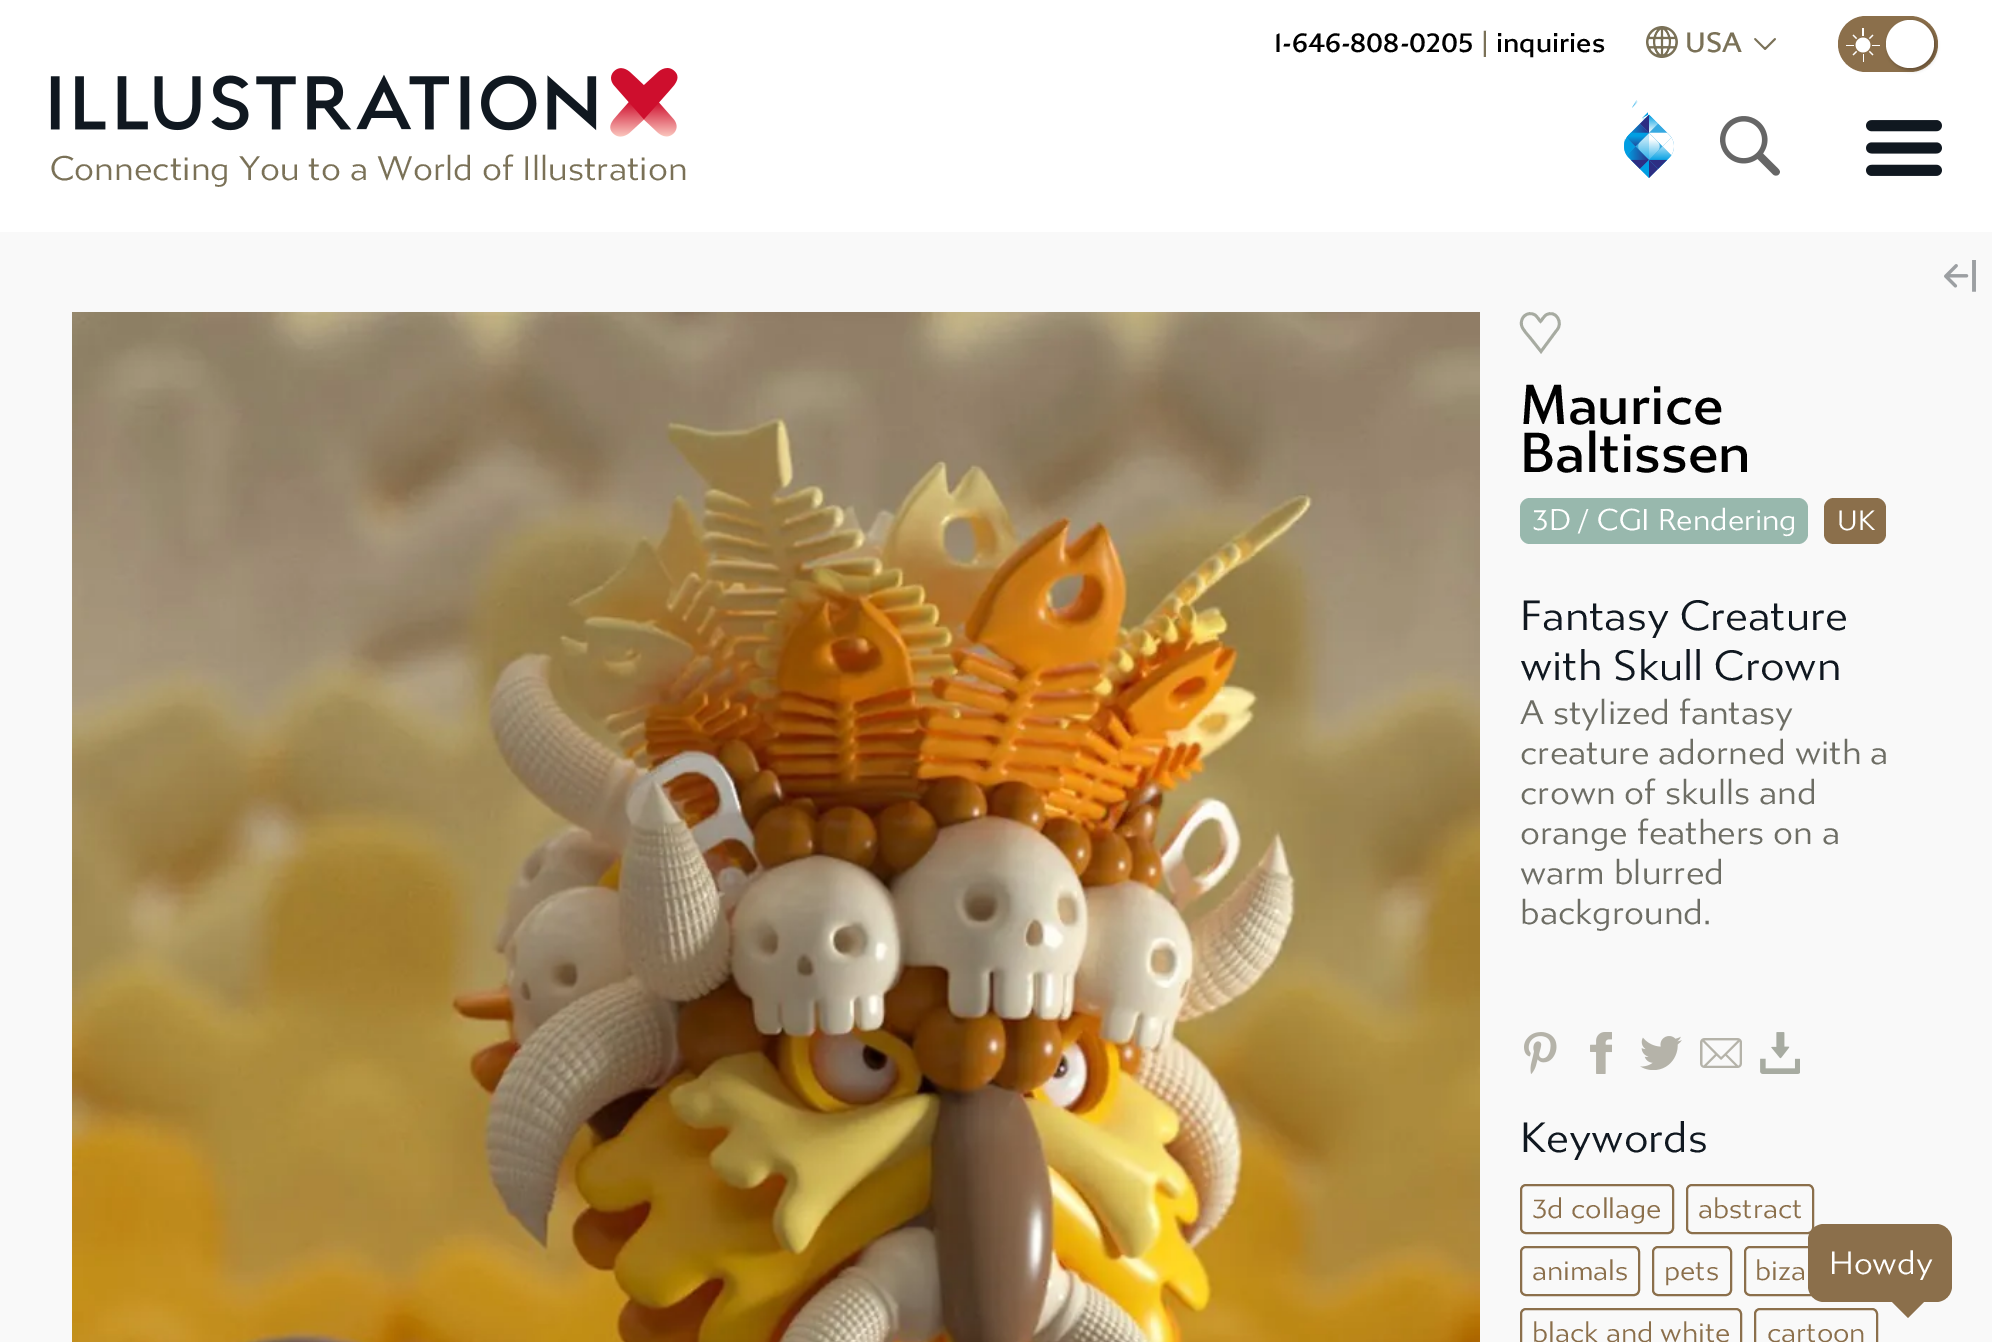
%!PS
<< /PageSize [1992 1342] /PageUsesTransparency true >> setpagedevice
/mt/moveto load def
/li/lineto load def
/ct/curveto load def
/cp/closepath load def
/fl/fill load def
/st/stroke load def
/gs/gsave load def
/gr/grestore load def
/lw/setlinewidth load def
/co { dup -16 bitshift 255 div exch dup -8 bitshift 255 and 255 div exch 255 and 255 div setrgbcolor } def
/fn { [ exch dup neg 0 0 3 -1 roll 0 0 ] selectfont } def
/tx { co fn moveto show } def
/bx { co rectfill } def
/al { dup .setfillconstantalpha .setstrokeconstantalpha } def
/ci { newpath 0 360 arc closepath } def
/rr { 5 dict begin { /r /h /w /y /x } { exch def } forall
  x r add y moveto x w add y 2 copy h add r arct x w add y h add x 1 index r arct
  x y h add x y r arct x y 2 copy exch w add exch r arct closepath end } def
/sh { 12 dict begin { /a /b /q /h /w /y /x } { exch def } forall gsave /was 0 def
  9 -2 -9 { dup b mul 4 div /e exch def 1 sub .425 mul 2.718 exch exp 1 add a .99 .min exch div /now exch def
    1 1 now sub 1 was sub div sub al /was now def
    w h .min e 2 mul add 0 gt { x e sub y e sub w e 2 mul add h e 2 mul add
      q e add b .6 mul add w h .min 2 div e add .min 0 .max rr fill } if } for grestore end } def
/im { 5 dict begin { /h /w /y /x /name } { exch def } forall
  gsave x y translate w h scale
  w h 8 [w 0 0 h 0 0] name (r) file false 3 colorimage grestore end } def
0 .pushpdf14devicefilter
0 1342 translate 1 -1 scale
4 setmiterlimit
0 0 1992 1342 16#F9F9F9 bx
0 0 1992 232 16#FFFFFF bx
(media/1.raw) 1646 26 32 32 im
(media/2.raw) 1754 38 22 12 im
16#8B6F4B co
1838 16 100 56 28 rr fl
(media/3.raw) 1846 28 34 34 im
16#000000 co
1888 22 48 48 24 2 .3 sh
16#FFFFFF co
1910 44 24 ci fl
(media/4.raw) 50 68 628 69 im
(media/5.raw) 1632 100 16 19 im
gs 1649.5 118 mt 1642 119 li 1649.5 120 li cp clip newpath
<< /ShadingType 2 /ColorSpace /DeviceRGB /Coords [1642 119 1650 119] /Extend [true true] /Function << /FunctionType 2 /Domain [0 1] /C0 [0 .624 .89] /C1 [1 1 1] /N 1 >> >> shfill gr
(media/6.raw) 1624 114 50 64 im
(media/7.raw) 1720 116 60 60 im
(media/8.raw) 1866 120 76 56 im
(media/9.raw) 1944 260 32 32 im
(media/10.raw) 72 312 1408 1030 im
16#A7ABA1 co
2.8 lw
1541 351.5 mt 1531.5 339.5 li 1528.5 335.5 1522.5 330 1521.5 325 ct 1520 317.5 1527.5 310.5 1535 315 ct 1537.5 316.5 1538.5 319.5 1540.5 321.5 ct 1542.5 319.5 1543.5 316.5 1546 315 ct 1555.5 309 1564 323 1556.5 330.5 ct cp st
16#98B8AD co
1520 498 288 46 10 rr fl
16#8B6F4B co
1824 498 62 46 10 rr fl
(media/11.raw) 1524 1032 33 42 im
(media/12.raw) 1590 1032 22 42 im
(media/13.raw) 1640 1036 42 34 im
(media/14.raw) 1700 1038 42 30 im
(media/15.raw) 1760 1032 40 42 im
2 lw
1521 1185 152 48 5 rr st
1687 1185 126 48 5 rr st
1521 1247 118 48 5 rr st
1653 1247 78 48 5 rr st
1745 1247 108 48 5 rr st
1521 1309 220 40 5 rr st
1755 1309 122 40 5 rr st
1808 1224 144 78 16 rr fl
1888 1298 mt 1928 1298 li 1908 1318 li cp fl
(1-646-808-0205) 1274 52 /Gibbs-Medium 28 16#000000 tx
(|) 1481 52 /Gibbs-Medium 28 16#7A7157 tx
(inquiries) 1496 52 /Gibbs-Medium 28 16#000000 tx
(USA) 1685 52 /Gibbs-Medium 28 16#7A7157 tx
(Connecting You to a World of Illustration) 50 180 /Gibbs-Regular 34 16#7A7157 tx
(Maurice) 1520 424 /Gibbs-Medium 56 16#000000 tx
(Baltissen) 1520 472 /Gibbs-Medium 56 16#000000 tx
(3D / CGI Rendering) 1532 530 /Gibbs-Regular 30 16#FFFFFF tx
(UK) 1837 530 /Gibbs-Regular 28 16#FFFFFF tx
(Fantasy Creature) 1520 630 /Gibbs-Regular 42 16#101820 tx
(with Skull Crown) 1520 680 /Gibbs-Regular 42 16#101820 tx
(A stylized fantasy) 1520 724 /Gibbs-Regular 34 16#6D6D64 tx
(creature adorned with a) 1520 764 /Gibbs-Regular 34 16#6D6D64 tx
(crown of skulls and) 1520 804 /Gibbs-Regular 34 16#6D6D64 tx
(orange feathers on a) 1520 844 /Gibbs-Regular 34 16#6D6D64 tx
(warm blurred) 1520 884 /Gibbs-Regular 34 16#6D6D64 tx
(background.) 1520 924 /Gibbs-Regular 34 16#6D6D64 tx
(Keywords) 1520 1152 /Gibbs-Regular 42 16#101820 tx
(3d collage) 1532 1218 /Gibbs-Regular 28 16#8B6F4B tx
(abstract) 1698 1218 /Gibbs-Regular 28 16#8B6F4B tx
(animals) 1532 1280 /Gibbs-Regular 28 16#8B6F4B tx
(pets) 1664 1280 /Gibbs-Regular 28 16#8B6F4B tx
(biza) 1755 1280 /Gibbs-Regular 28 16#8B6F4B tx
(black and white) 1532 1342 /Gibbs-Regular 28 16#8B6F4B tx
(cartoon) 1767 1342 /Gibbs-Regular 28 16#8B6F4B tx
(Howdy) 1829 1274 /Gibbs-Regular 32 16#FFFFFF tx
.poppdf14devicefilter showpage
